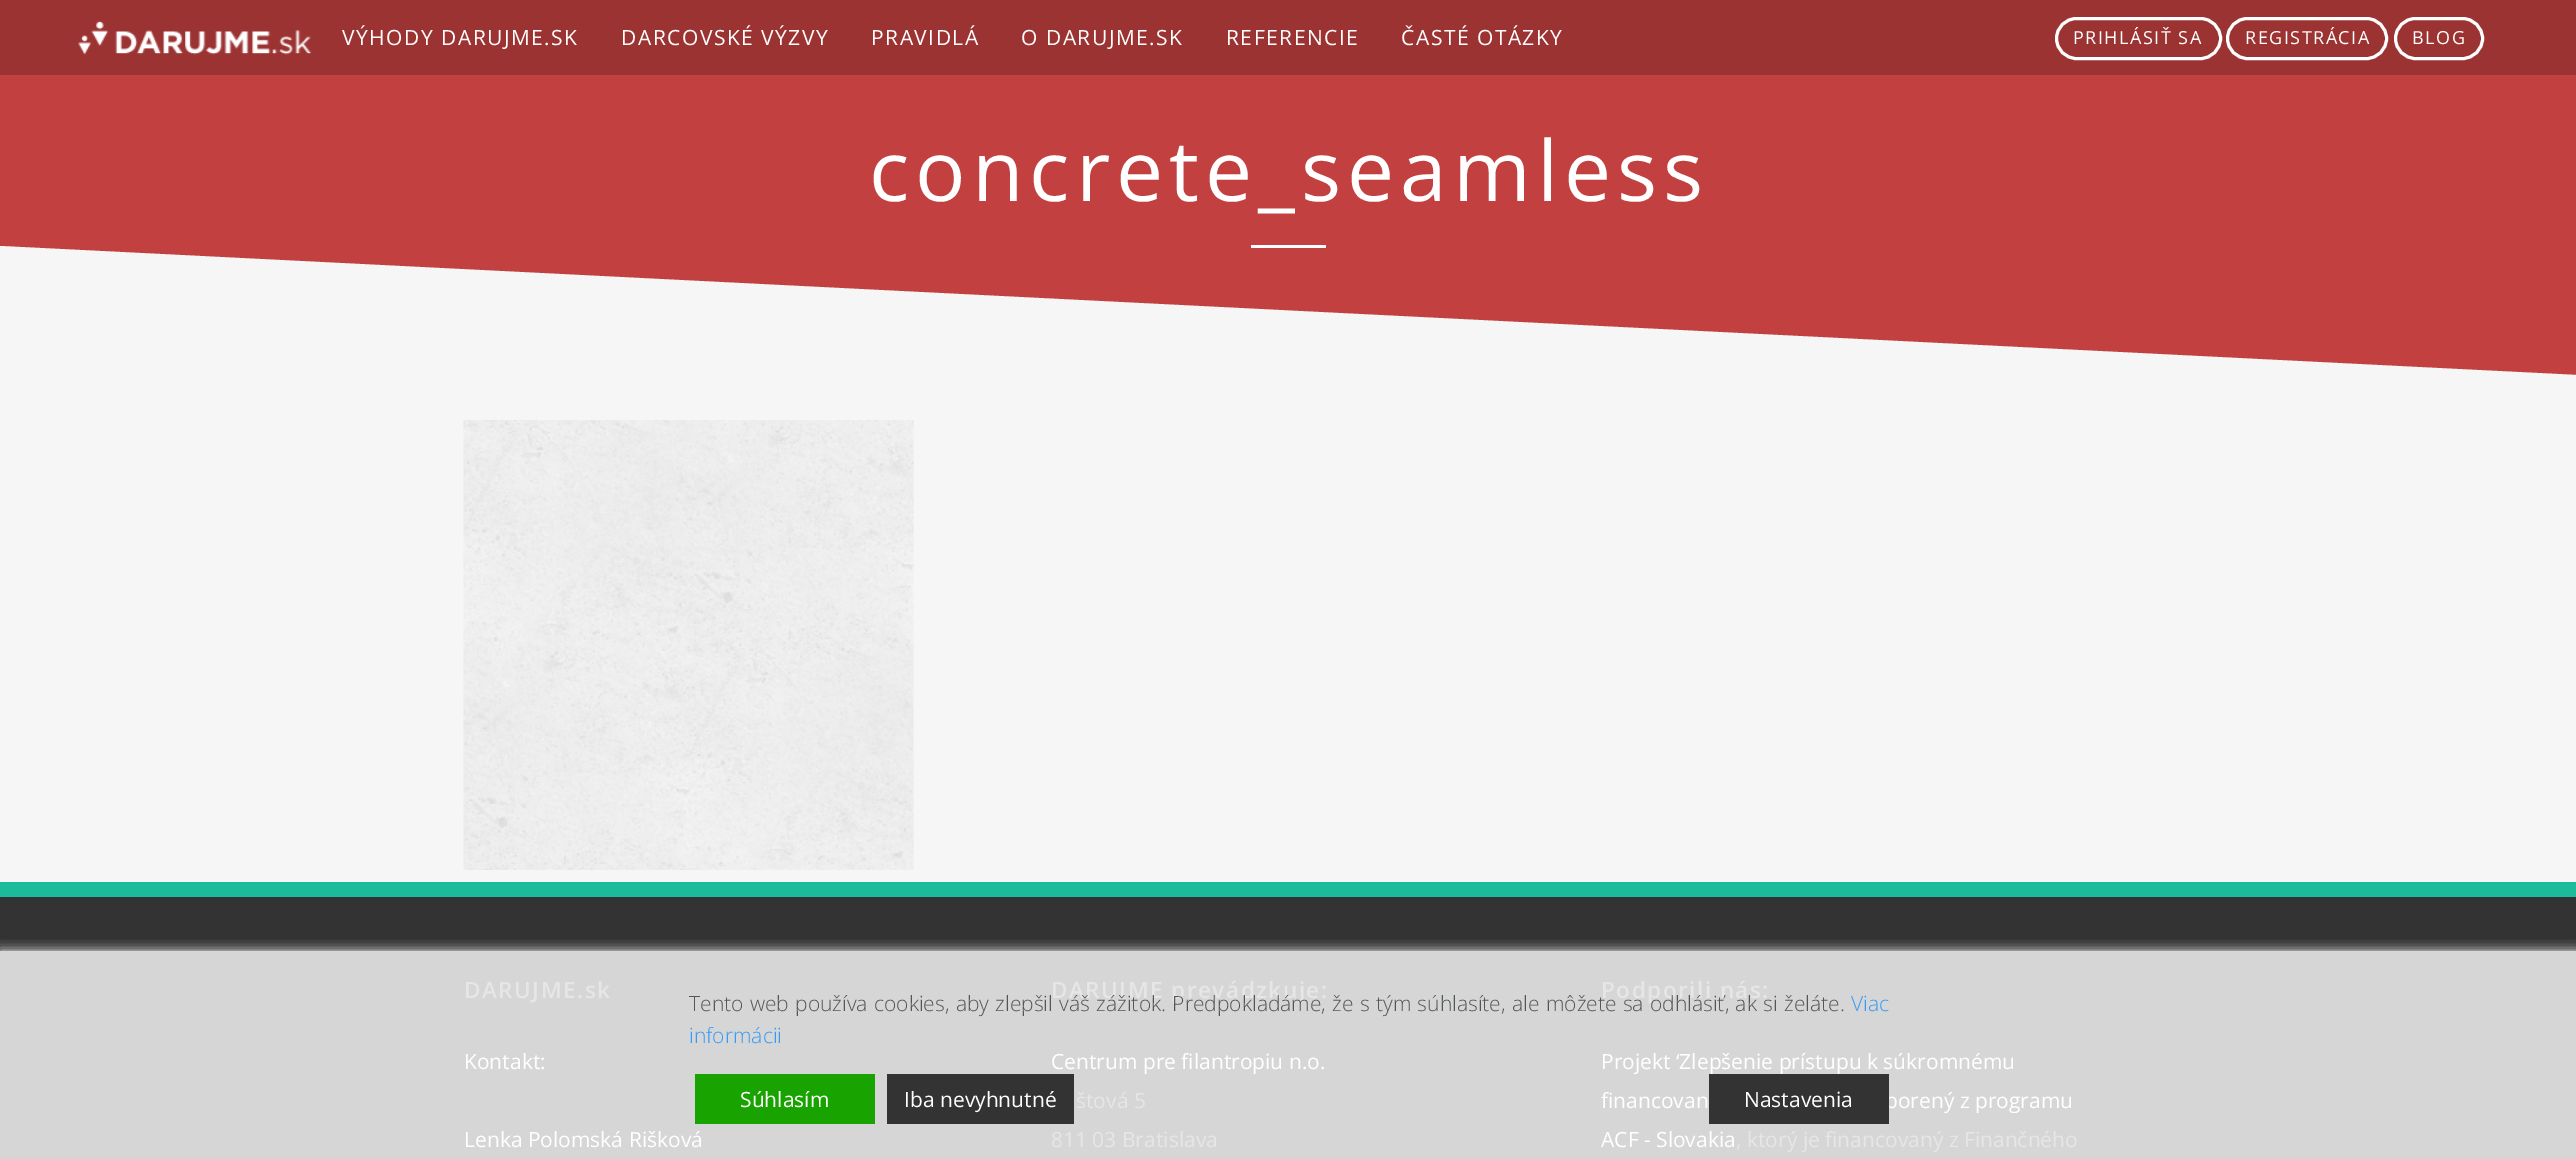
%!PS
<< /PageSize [2576 1159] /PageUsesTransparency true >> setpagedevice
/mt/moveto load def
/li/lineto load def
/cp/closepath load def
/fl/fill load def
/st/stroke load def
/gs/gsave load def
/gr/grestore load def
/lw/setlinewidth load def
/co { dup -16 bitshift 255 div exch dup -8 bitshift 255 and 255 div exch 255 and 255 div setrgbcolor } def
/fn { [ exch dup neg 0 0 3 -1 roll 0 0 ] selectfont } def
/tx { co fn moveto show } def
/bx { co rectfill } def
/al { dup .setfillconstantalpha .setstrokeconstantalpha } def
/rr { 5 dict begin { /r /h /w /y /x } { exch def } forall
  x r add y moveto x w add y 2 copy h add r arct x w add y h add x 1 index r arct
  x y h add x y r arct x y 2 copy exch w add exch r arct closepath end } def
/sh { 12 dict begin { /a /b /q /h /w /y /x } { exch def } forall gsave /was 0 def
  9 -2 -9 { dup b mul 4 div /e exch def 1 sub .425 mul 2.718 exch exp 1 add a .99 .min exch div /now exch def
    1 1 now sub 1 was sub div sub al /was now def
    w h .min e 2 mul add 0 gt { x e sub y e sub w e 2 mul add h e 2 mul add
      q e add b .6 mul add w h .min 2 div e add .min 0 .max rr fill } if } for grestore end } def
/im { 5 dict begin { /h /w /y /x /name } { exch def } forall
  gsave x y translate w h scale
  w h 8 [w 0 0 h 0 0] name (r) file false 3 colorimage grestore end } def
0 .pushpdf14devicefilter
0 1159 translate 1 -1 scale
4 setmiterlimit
0 0 2576 1159 16#F6F6F6 bx
0 0 2576 75 16#9C3333 bx
(media/1.raw) 78 21 234 34 im
16#FFFFFF co
3 lw
2056.5 18.5 164 40 20 rr st
2227.5 18.5 159 40 20 rr st
2395.5 18.5 87 40 20 rr st
0 75 2576 300 16#C34040 bx
1251 245 75 3 16#FFFFFF bx
16#F6F6F6 co
0 246 mt 0 375 li 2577 375 li cp fl
(media/2.raw) 463 420 451 450 im
0 897 2576 54 16#333333 bx
0 951 2576 208 16#D6D6D6 bx
0 882 2576 15 16#1ABC9C bx
gs
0 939 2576 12 rectclip
16#FFFFFF co
0 951 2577 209 0 6 1 sh
gr
695 1074 180 50 16#18A300 bx
887 1074 187 50 16#333333 bx
/OpenSans-Regular 21 fn
16#FFFFFF co
342 45 mt 1.5 0 (VÝHODY DARUJME.SK) ashow
621 45 mt 1.5 0 (DARCOVSKÉ VÝZVY) ashow
871 45 mt 1.5 0 (PRAVIDLÁ) ashow
1021 45 mt 1.5 0 (O DARUJME.SK) ashow
1226 45 mt 1.5 0 (REFERENCIE) ashow
1401 45 mt 1.5 0 (ČASTÉ OTÁZKY) ashow
/OpenSans-Regular 18 fn
2073 44 mt 1.5 0 (PRIHLÁSIŤ SA) ashow
2245 44 mt 1.5 0 (REGISTRÁCIA) ashow
2412 44 mt 1.5 0 (BLOG) ashow
/OpenSans-Regular 84 fn
869 201 mt 6 0 (concrete_seamless) ashow
/OpenSans-SemiBold 22.5 fn
16#E6E6E6 co
464 998 mt 1.5 0 (DARUJME.sk) ashow
(Kontakt:) 464 1069 /OpenSans-Regular 21 16#FFFFFF tx
(Lenka Polomská Rišková) 464 1147 /OpenSans-Regular 21 16#FFFFFF tx
/OpenSans-SemiBold 22.5 fn
16#E6E6E6 co
1051 998 mt 1.5 0 (DARUJME prevádzkuje:) ashow
(Centrum pre filantropiu n.o.) 1051 1069 /OpenSans-Regular 21 16#FFFFFF tx
(štová 5) 1076 1108 /OpenSans-Regular 21 16#E6E6E6 tx
(811 03 Bratislava) 1051 1147 /OpenSans-Regular 21 16#E6E6E6 tx
/OpenSans-SemiBold 22.5 fn
1601 998 mt 1.5 0 (Podporili nás:) ashow
(Projekt ‘Zlepšenie prístupu k súkromnému) 1601 1069 /OpenSans-Regular 21 16#FFFFFF tx
(financovan) 1601 1108 /OpenSans-Regular 21 16#FFFFFF tx
(porený z programu) 1885 1108 /OpenSans-Regular 21 16#FFFFFF tx
(ACF - Slovakia) 1601 1147 /OpenSans-Regular 21 16#FFFFFF tx
(, ktorý je financovaný z Finančného) 1736 1147 /OpenSans-Regular 21 16#E6E6E6 tx
/OpenSans-Light 21 fn
16#535658 co
689 1011 mt .9 0 32 (Tento web používa cookies, aby zlepšil váš zážitok. Predpokladáme, že s tým súhlasíte, ale môžete sa odhlásiť, ak si želáte.) widthshow
(Viac) 1851 1011 /OpenSans-Light 21 16#359BF5 tx
(informácii) 689 1043 /OpenSans-Light 21 16#359BF5 tx
(Súhlasím) 740 1107 /OpenSans-Regular 21 16#FFFFFF tx
(Iba nevyhnutné) 904 1107 /OpenSans-Regular 21 16#FFFFFF tx
1709 1074 180 50 16#333333 bx
(Nastavenia) 1744 1107 /OpenSans-Regular 21 16#FFFFFF tx
.poppdf14devicefilter showpage
